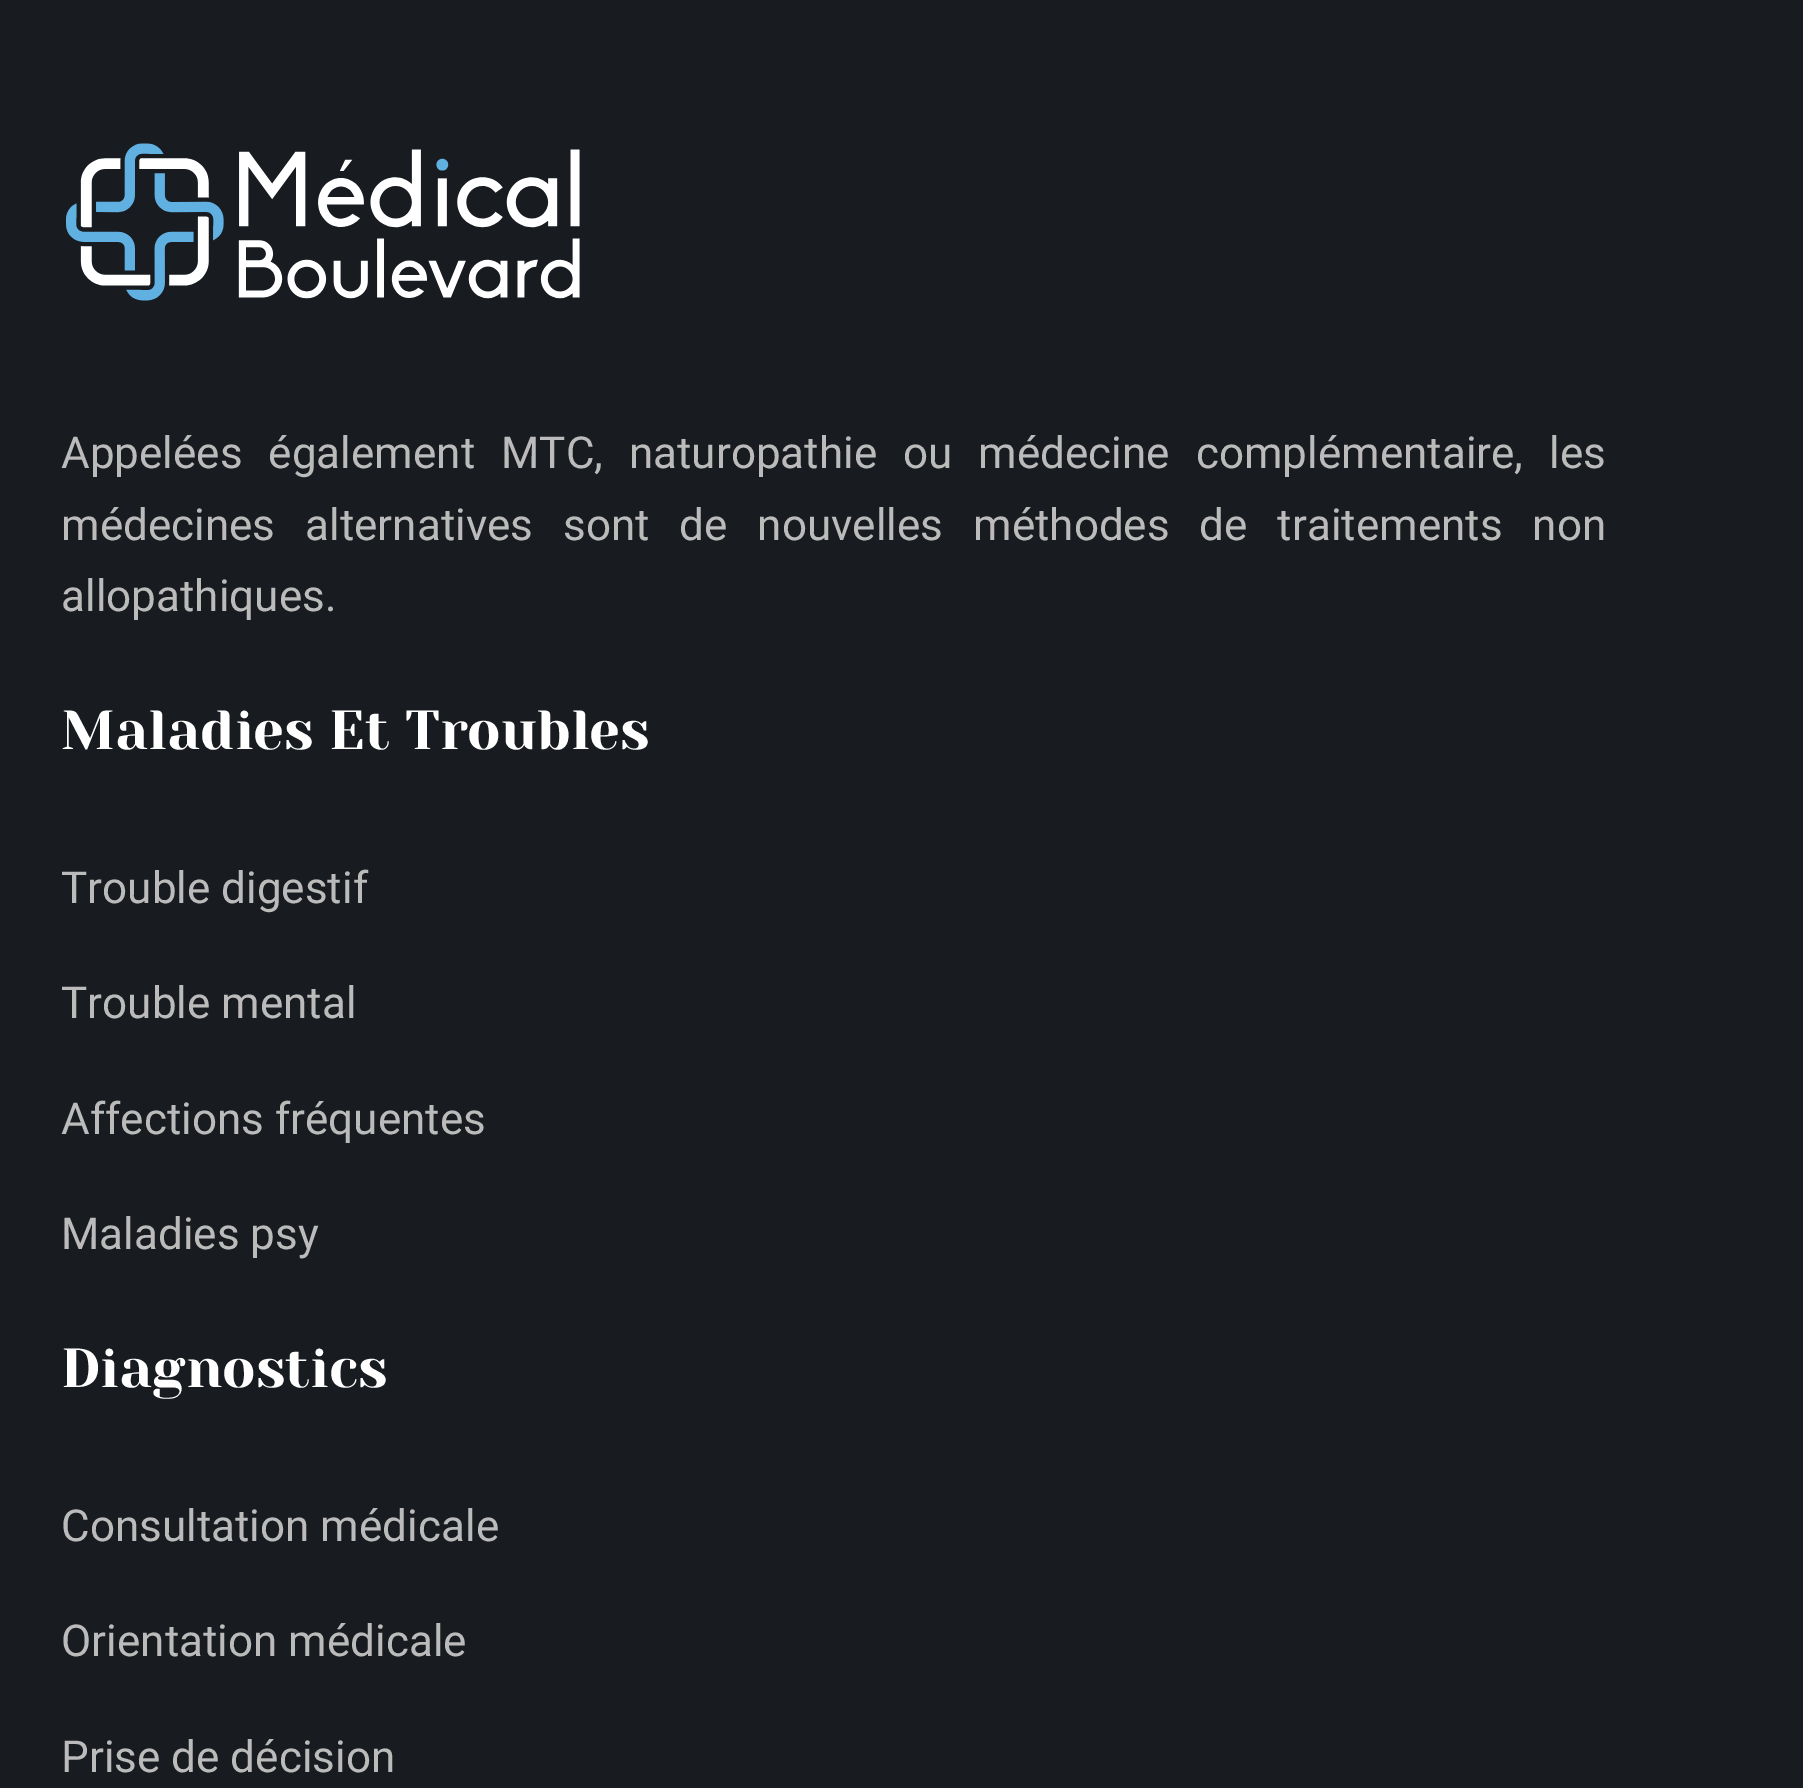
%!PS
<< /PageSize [1803 1788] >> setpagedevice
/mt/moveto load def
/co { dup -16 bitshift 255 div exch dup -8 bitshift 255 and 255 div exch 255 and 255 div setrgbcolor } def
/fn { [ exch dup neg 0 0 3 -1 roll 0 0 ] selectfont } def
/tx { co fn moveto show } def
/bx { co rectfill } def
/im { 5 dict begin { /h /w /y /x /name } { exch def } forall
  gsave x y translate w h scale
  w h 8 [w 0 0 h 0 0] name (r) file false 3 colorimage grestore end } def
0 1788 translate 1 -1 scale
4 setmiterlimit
0 0 1803 1788 16#181B1F bx
(media/1.raw) 66 143 514 158 im
/Roboto-Regular 44 fn
16#BBBBBB co
61 468 mt 15 0 32 (Appelées également MTC, naturopathie ou médecine complémentaire, les) widthshow
61 540 mt 19 0 32 (médecines alternatives sont de nouvelles méthodes de traitements non) widthshow
(allopathiques.) 61 611 /Roboto-Regular 44 16#BBBBBB tx
(Maladies Et Troubles) 61 749 /YesevaOne-Regular 55 16#FFFFFF tx
(Trouble digestif) 61 903 /Roboto-Regular 44 16#BBBBBB tx
(Trouble mental) 61 1018 /Roboto-Regular 44 16#BBBBBB tx
(Affections fréquentes) 61 1134 /Roboto-Regular 44 16#BBBBBB tx
(Maladies psy) 61 1249 /Roboto-Regular 44 16#BBBBBB tx
(Diagnostics) 61 1387 /YesevaOne-Regular 55 16#FFFFFF tx
(Consultation médicale) 61 1541 /Roboto-Regular 44 16#BBBBBB tx
(Orientation médicale) 61 1656 /Roboto-Regular 44 16#BBBBBB tx
(Prise de décision) 61 1772 /Roboto-Regular 44 16#BBBBBB tx
showpage
